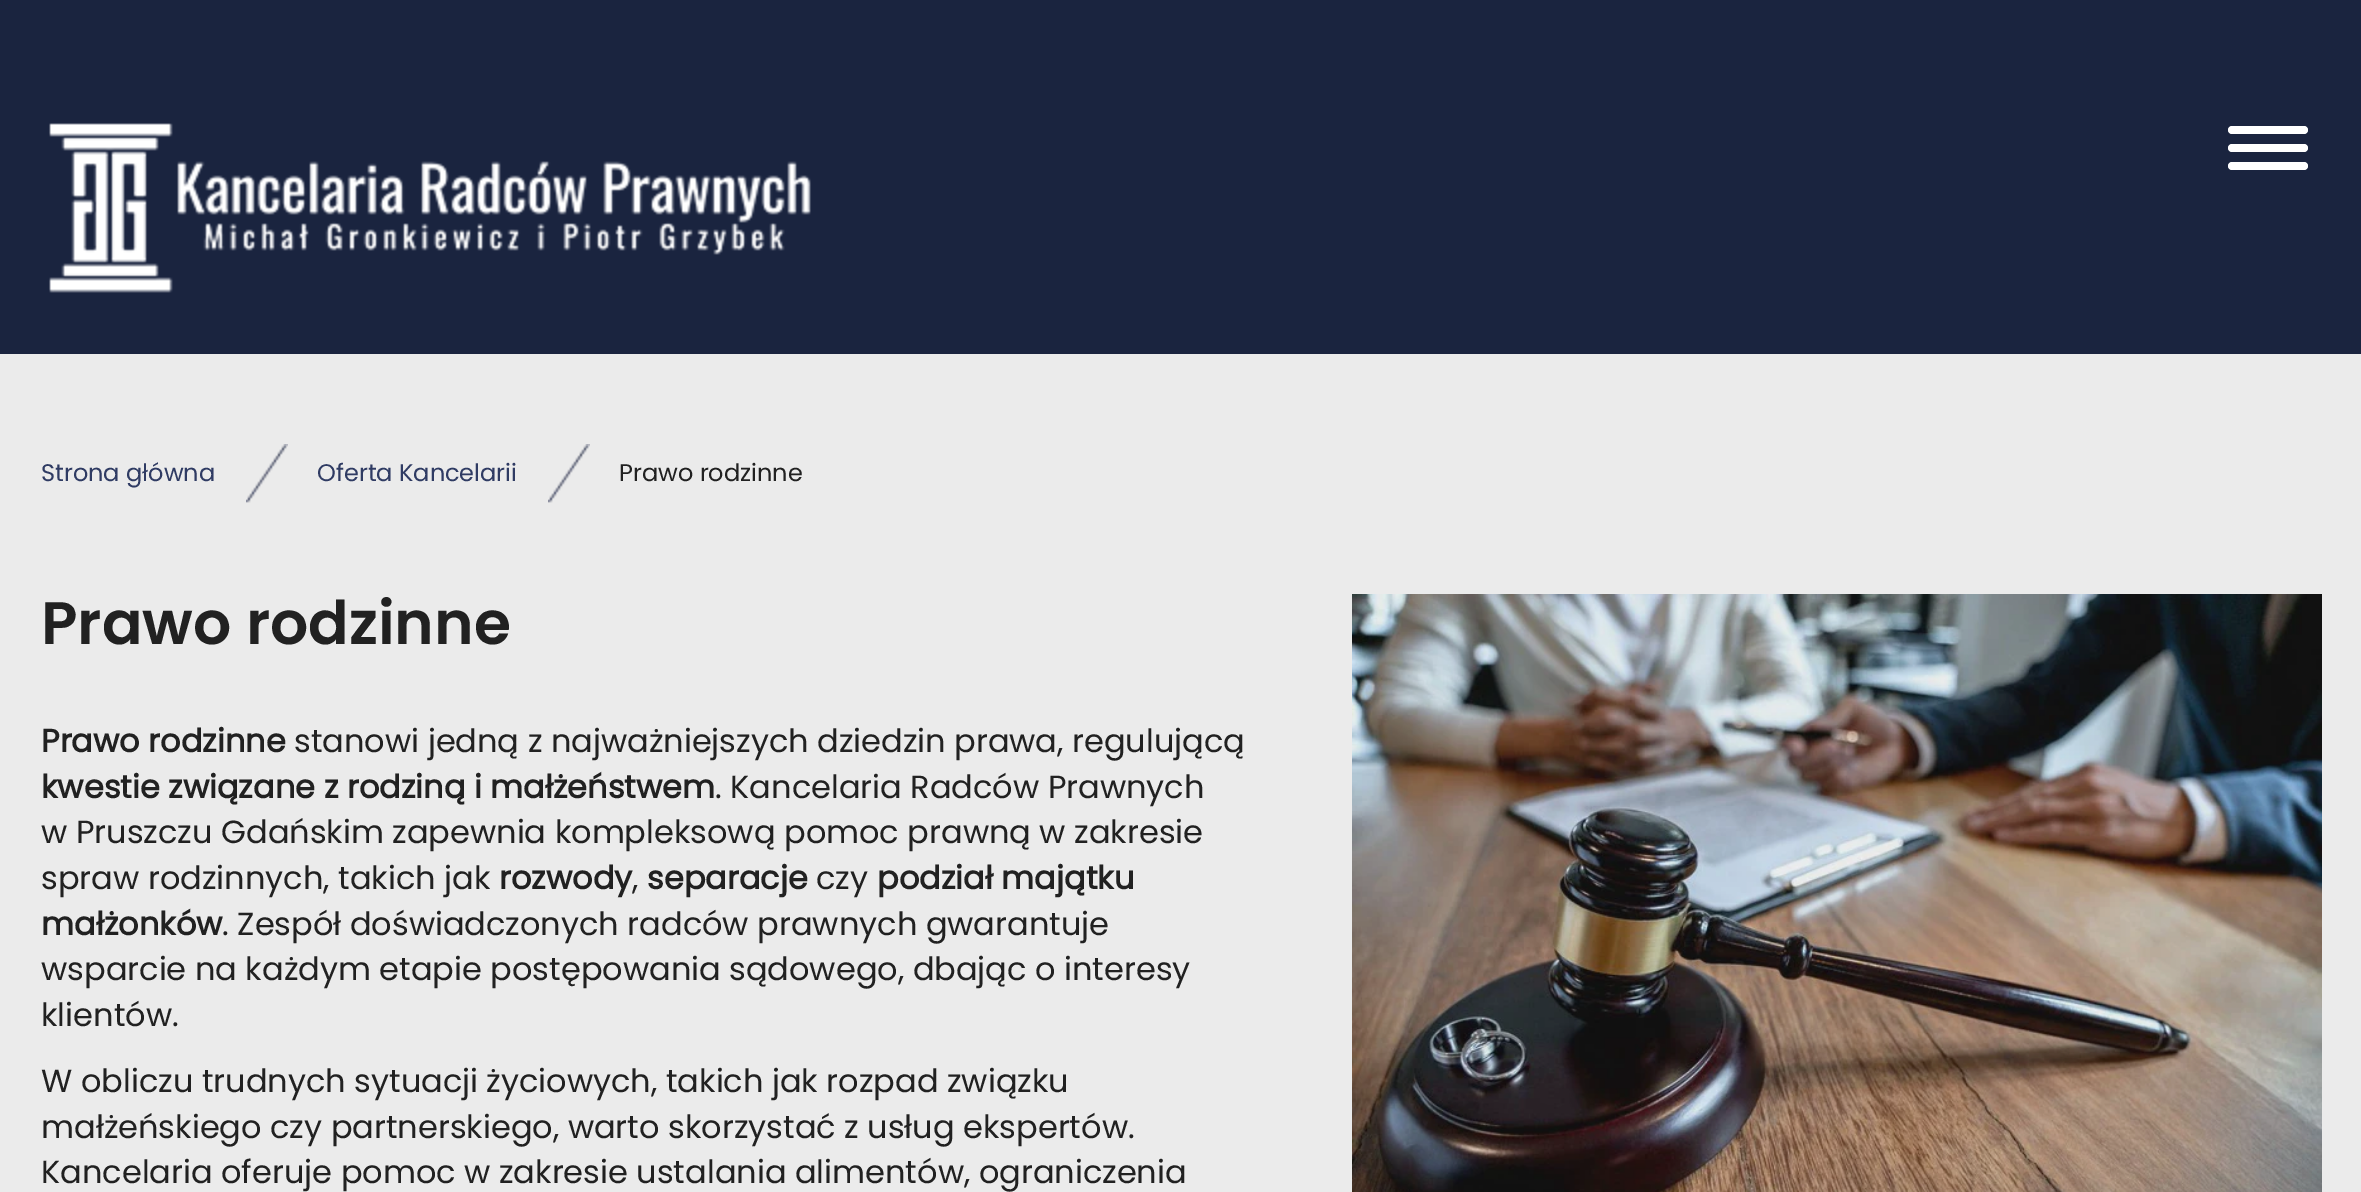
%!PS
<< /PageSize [2361 1192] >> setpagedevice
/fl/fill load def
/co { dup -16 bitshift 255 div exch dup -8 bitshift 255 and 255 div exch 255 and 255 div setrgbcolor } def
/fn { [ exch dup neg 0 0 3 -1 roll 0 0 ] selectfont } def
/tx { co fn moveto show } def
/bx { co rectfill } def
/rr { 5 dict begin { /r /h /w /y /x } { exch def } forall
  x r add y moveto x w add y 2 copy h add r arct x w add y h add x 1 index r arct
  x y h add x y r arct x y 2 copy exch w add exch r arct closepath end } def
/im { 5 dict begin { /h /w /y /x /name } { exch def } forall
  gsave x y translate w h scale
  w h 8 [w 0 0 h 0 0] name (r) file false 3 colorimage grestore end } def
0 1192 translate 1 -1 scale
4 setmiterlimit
0 0 2361 1192 16#EBEBEB bx
0 0 2361 354 16#1A243F bx
(media/1.raw) 49 123 762 170 im
16#FFFFFF co
2228 126 80 8 4 rr fl
2228 144 80 8 4 rr fl
2228 162 80 8 4 rr fl
(media/2.raw) 246 444 42 59 im
(media/2.raw) 548 444 42 59 im
(media/3.raw) 1352 594 970 598 im
(Strona główna) 41 481 /Poppins-Regular 24 16#2F3B63 tx
(Oferta Kancelarii) 317 481 /Poppins-Regular 24 16#2F3B63 tx
(Prawo rodzinne) 619 481 /Poppins-Regular 24 16#212121 tx
(Prawo rodzinne) 41 644 /Poppins-SemiBold 60 16#212121 tx
(Prawo rodzinne) 41 752 /Poppins-Bold 32 16#212121 tx
(stanowi jedną z najważniejszych dziedzin prawa, regulującą) 294 752 /Poppins-Regular 32 16#212121 tx
(kwestie związane z rodziną i małżeństwem) 41 798 /Poppins-Bold 32 16#212121 tx
(. Kancelaria Radców Prawnych) 715 798 /Poppins-Regular 32 16#212121 tx
(w Pruszczu Gdańskim zapewnia kompleksową pomoc prawną w zakresie) 41 843 /Poppins-Regular 32 16#212121 tx
(spraw rodzinnych, takich jak) 41 889 /Poppins-Regular 32 16#212121 tx
(rozwody) 499 889 /Poppins-Bold 32 16#212121 tx
(,) 632 889 /Poppins-Regular 32 16#212121 tx
(separacje) 647 889 /Poppins-Bold 32 16#212121 tx
(czy) 816 889 /Poppins-Regular 32 16#212121 tx
(podział majątku) 877 889 /Poppins-Bold 32 16#212121 tx
(małżonków) 41 935 /Poppins-Bold 32 16#212121 tx
(. Zespół doświadczonych radców prawnych gwarantuje) 222 935 /Poppins-Regular 32 16#212121 tx
(wsparcie na każdym etapie postępowania sądowego, dbając o interesy) 41 980 /Poppins-Regular 32 16#212121 tx
(klientów.) 41 1026 /Poppins-Regular 32 16#212121 tx
(W obliczu trudnych sytuacji życiowych, takich jak rozpad związku) 41 1092 /Poppins-Regular 32 16#212121 tx
(małżeńskiego czy partnerskiego, warto skorzystać z usług ekspertów.) 41 1138 /Poppins-Regular 32 16#212121 tx
(Kancelaria oferuje pomoc w zakresie ustalania alimentów, ograniczenia) 41 1183 /Poppins-Regular 32 16#212121 tx
showpage
